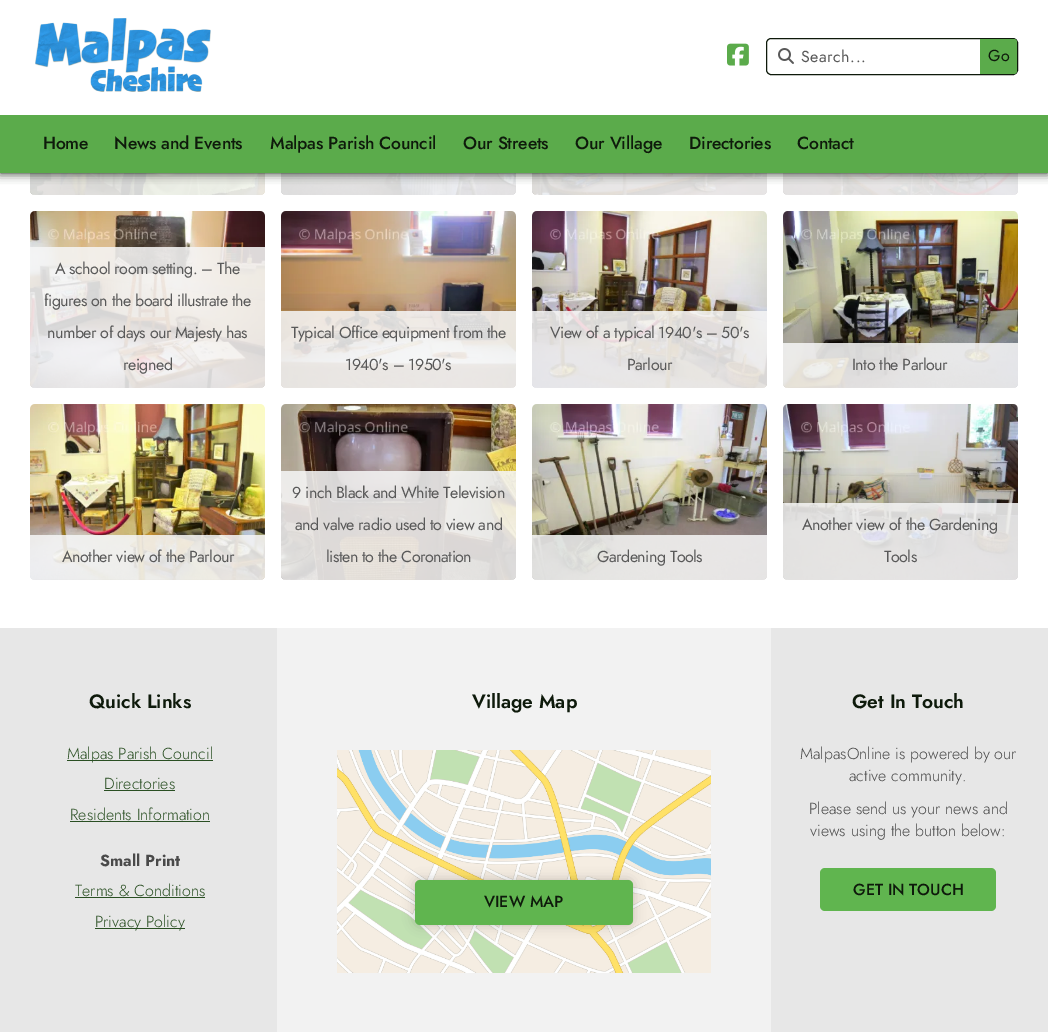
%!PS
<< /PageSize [1048 1032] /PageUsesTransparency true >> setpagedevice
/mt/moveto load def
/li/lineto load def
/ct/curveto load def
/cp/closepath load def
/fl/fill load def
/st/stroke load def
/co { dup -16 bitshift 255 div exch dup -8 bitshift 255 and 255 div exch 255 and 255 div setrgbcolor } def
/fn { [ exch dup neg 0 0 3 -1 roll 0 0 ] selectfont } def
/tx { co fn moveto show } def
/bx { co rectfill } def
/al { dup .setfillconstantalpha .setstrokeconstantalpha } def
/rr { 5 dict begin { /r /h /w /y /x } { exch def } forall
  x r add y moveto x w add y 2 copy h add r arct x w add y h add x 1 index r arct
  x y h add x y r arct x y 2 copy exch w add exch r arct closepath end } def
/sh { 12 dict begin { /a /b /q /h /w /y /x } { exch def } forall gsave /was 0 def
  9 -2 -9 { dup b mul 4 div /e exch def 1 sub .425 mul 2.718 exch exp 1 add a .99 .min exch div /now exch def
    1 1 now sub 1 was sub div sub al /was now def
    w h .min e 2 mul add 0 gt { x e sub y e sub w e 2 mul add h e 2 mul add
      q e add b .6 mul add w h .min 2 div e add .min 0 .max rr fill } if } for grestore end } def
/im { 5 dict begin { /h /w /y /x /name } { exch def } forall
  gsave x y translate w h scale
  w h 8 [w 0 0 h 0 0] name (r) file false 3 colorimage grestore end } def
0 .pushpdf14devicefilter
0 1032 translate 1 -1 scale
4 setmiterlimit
0 0 1048 1032 16#FFFFFF bx
(media/4.raw) 30 173 235 22 im
0.87 al
16#F5F5F5 co
30 87 mt 265 87 li 265 190 li 265 193 263 195 260 195 ct 35 195 li 32 195 30 193 30 190 ct cp fl
1 al
(media/5.raw) 281 173 235 22 im
0.87 al
281 119 mt 516 119 li 516 190 li 516 193 514 195 511 195 ct 286 195 li 283 195 281 193 281 190 ct cp fl
1 al
(media/6.raw) 532 173 235 22 im
0.87 al
532 119 mt 767 119 li 767 190 li 767 193 765 195 762 195 ct 537 195 li 534 195 532 193 532 190 ct cp fl
1 al
(media/7.raw) 783 173 235 22 im
0.87 al
783 119 mt 1018 119 li 1018 190 li 1018 193 1016 195 1013 195 ct 788 195 li 785 195 783 193 783 190 ct cp fl
1 al
16#0E1A0B co
0 0 1048 173 0 5 1 sh
0 0 1048 115 16#FFFFFF bx
(media/1.raw) 35 18 176 74 im
(media/2.raw) 727 43 22 23 im
16#0E1A0B co
766.5 38.5 251 36 4.5 rr st
(media/3.raw) 778 48 16 16 im
16#5BAB4B co
980 39 mt 1014 39 li 1015.5 39 1017 40.5 1017 42 ct 1017 71 li 1017 72.5 1015.5 74 1014 74 ct 980 74 li cp fl
0 115 1048 58 16#5BAB4B bx
(media/8.raw) 30 211 235 177 im
0.87 al
16#F5F5F5 co
30 247 mt 265 247 li 265 383 li 265 386 263 388 260 388 ct 35 388 li 32 388 30 386 30 383 ct cp fl
1 al
(media/9.raw) 281 211 235 177 im
0.87 al
281 311 mt 516 311 li 516 383 li 516 386 514 388 511 388 ct 286 388 li 283 388 281 386 281 383 ct cp fl
1 al
(media/10.raw) 532 211 235 177 im
0.87 al
532 311 mt 767 311 li 767 383 li 767 386 765 388 762 388 ct 537 388 li 534 388 532 386 532 383 ct cp fl
1 al
(media/11.raw) 783 211 235 177 im
0.87 al
783 343 mt 1018 343 li 1018 383 li 1018 386 1016 388 1013 388 ct 788 388 li 785 388 783 386 783 383 ct cp fl
1 al
(media/12.raw) 30 404 235 176 im
0.87 al
30 535 mt 265 535 li 265 575 li 265 578 263 580 260 580 ct 35 580 li 32 580 30 578 30 575 ct cp fl
1 al
(media/13.raw) 281 404 235 176 im
0.87 al
281 471 mt 516 471 li 516 575 li 516 578 514 580 511 580 ct 286 580 li 283 580 281 578 281 575 ct cp fl
1 al
(media/14.raw) 532 404 235 176 im
0.87 al
532 535 mt 767 535 li 767 575 li 767 578 765 580 762 580 ct 537 580 li 534 580 532 578 532 575 ct cp fl
1 al
(media/15.raw) 783 404 235 176 im
0.87 al
783 503 mt 1018 503 li 1018 575 li 1018 578 1016 580 1013 580 ct 788 580 li 785 580 783 578 783 575 ct cp fl
1 al
0 628 1048 404 16#E7E7E7 bx
67 760 146 1 16#2A4F23 bx
104 790 71 1 16#2A4F23 bx
70 821 140 1 16#2A4F23 bx
75 897 130 1 16#2A4F23 bx
95 928 90 1 16#2A4F23 bx
277 628 494 404 16#F2F2F2 bx
(media/16.raw) 337 750 374 223 im
16#000000 co
415 880 218 45 5 6 .2 sh
16#60B54F co
415 880 218 45 5 rr fl
820 868 176 43 5 rr fl
/Jost-Regular 16 fn
16#595959 co
801 62 mt .5 0 (Search...) ashow
16#0E1A0B co
988 61 mt .5 0 (Go) ashow
/Jost-Medium 17.5 fn
43 149 mt -.2 0 (Home) ashow
114 149 mt -.2 0 (News and Events) ashow
270 149 mt -.2 0 (Malpas Parish Council) ashow
463 149 mt -.2 0 (Our Streets) ashow
575 149 mt -.2 0 (Our Village) ashow
689 149 mt -.2 0 (Directories) ashow
797 149 mt -.2 0 (Contact) ashow
/Jost-Regular 16 fn
16#595959 co
55 274 mt -.5 0 (A school room setting. – The) ashow
44 306 mt -.5 0 (figures on the board illustrate the) ashow
47 338 mt -.5 0 (number of days our Majesty has) ashow
123 370 mt -.5 0 (reigned) ashow
291 338 mt -.5 0 (Typical Office equipment from the) ashow
345 370 mt -.5 0 (1940's – 1950's) ashow
550 338 mt -.5 0 (View of a typical 1940's – 50's) ashow
627 370 mt -.5 0 (Parlour) ashow
852 370 mt -.5 0 (Into the Parlour) ashow
62 562 mt -.5 0 (Another view of the Parlour) ashow
292 498 mt -.5 0 (9 inch Black and White Television) ashow
295 530 mt -.5 0 (and valve radio used to view and) ashow
326 562 mt -.5 0 (listen to the Coronation) ashow
597 562 mt -.5 0 (Gardening Tools) ashow
802 530 mt -.5 0 (Another view of the Gardening) ashow
884 562 mt -.5 0 (Tools) ashow
(Quick Links) 89 708 /Jost-SemiBold 19.25 16#0E1A0B tx
(Malpas Parish Council) 67 759 /Jost-Light 16 16#2A4F23 tx
(Directories) 104 789 /Jost-Light 16 16#2A4F23 tx
(Residents Information) 70 820 /Jost-Light 16 16#2A4F23 tx
(Small Print) 100 866 /Jost-Bold 16 16#4A4A4A tx
(Terms & Conditions) 75 896 /Jost-Light 16 16#2A4F23 tx
(Privacy Policy) 95 927 /Jost-Light 16 16#2A4F23 tx
(Village Map) 472 708 /Jost-SemiBold 19.25 16#0E1A0B tx
(VIEW MAP) 484 907 /Jost-Medium 16 16#0E1A0B tx
(Get In Touch) 852 708 /Jost-SemiBold 19.25 16#0E1A0B tx
(MalpasOnline is powered by our) 800 759 /Jost-Light 16 16#4A4A4A tx
(active community.) 849 781 /Jost-Light 16 16#4A4A4A tx
(Please send us your news and) 809 814 /Jost-Light 16 16#4A4A4A tx
(views using the button below:) 810 836 /Jost-Light 16 16#4A4A4A tx
(GET IN TOUCH) 853 895 /Jost-Medium 16 16#0E1A0B tx
.poppdf14devicefilter showpage
